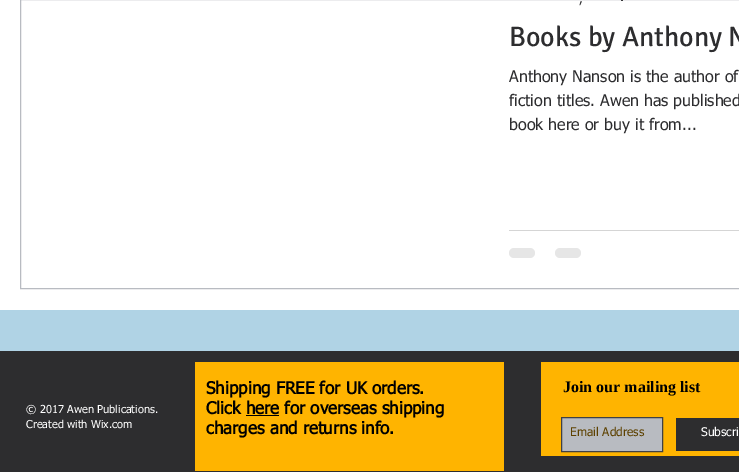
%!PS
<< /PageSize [739 472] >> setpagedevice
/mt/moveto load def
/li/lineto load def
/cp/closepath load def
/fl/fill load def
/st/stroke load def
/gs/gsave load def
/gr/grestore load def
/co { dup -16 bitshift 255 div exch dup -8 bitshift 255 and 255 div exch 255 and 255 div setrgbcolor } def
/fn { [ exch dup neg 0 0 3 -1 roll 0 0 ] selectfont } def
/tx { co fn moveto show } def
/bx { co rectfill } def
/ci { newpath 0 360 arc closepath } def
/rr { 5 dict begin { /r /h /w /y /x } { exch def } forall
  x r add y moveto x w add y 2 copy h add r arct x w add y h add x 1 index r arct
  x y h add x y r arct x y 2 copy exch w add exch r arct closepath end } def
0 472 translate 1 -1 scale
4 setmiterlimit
0 0 739 472 16#B0D3E5 bx
0 0 739 310 16#FFFFFF bx
16#B8BBC1 co
20.5 -.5 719 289 rectstroke
16#2D2D2F co
622 0 1 ci fl
509 230 230 1 16#D5D5D5 bx
16#E6E6E6 co
509 248 26 10 5 rr fl
555 248 26 10 5 rr fl
0 351 739 121 16#2D2D2F bx
195 362 309 109 16#FFB400 bx
246 415 33 1 16#000000 bx
541 362 198 94 16#FFB400 bx
16#B8BBC1 co
561.5 417.5 mt 662.5 417.5 li 662.5 451.5 li 561.5 451.5 li cp gs fl gr
16#404144 co
st
676 418 63 33 16#2D2D2F bx
(,) 579 3 /tahoma-Regular 12 16#2D2D2F tx
(Books by Anthony N) 509 46 /Signika-Regular 28 16#2D2D2F tx
(Anthony Nanson is the author of) 509 82 /tahoma-Regular 16 16#2D2D2F tx
(fiction titles. Awen has published) 509 106 /tahoma-Regular 16 16#2D2D2F tx
(book here or buy it from...) 509 130 /tahoma-Regular 16 16#2D2D2F tx
(© 2017 Awen Publications.) 26 413 /tahoma-Regular 11 16#FFFFFF tx
(Created with) 26 428 /tahoma-Regular 11 16#FFFFFF tx
(Wix.com) 91 428 /tahoma-Regular 11 16#FFFFFF tx
(Shipping FREE for UK orders.) 206 394 /tahoma-Bold 17 16#000000 tx
(Click here for overseas shipping) 206 414 /tahoma-Bold 17 16#000000 tx
(charges and returns info.) 206 434 /tahoma-Bold 17 16#000000 tx
(Join our mailing list) 563 392 /LiberationSerif-Bold 16 16#000000 tx
(Email Address) 570 436 /tahoma-Regular 12 16#5D4100 tx
(Subscri) 701 436 /tahoma-Regular 12 16#FFFFFF tx
showpage
